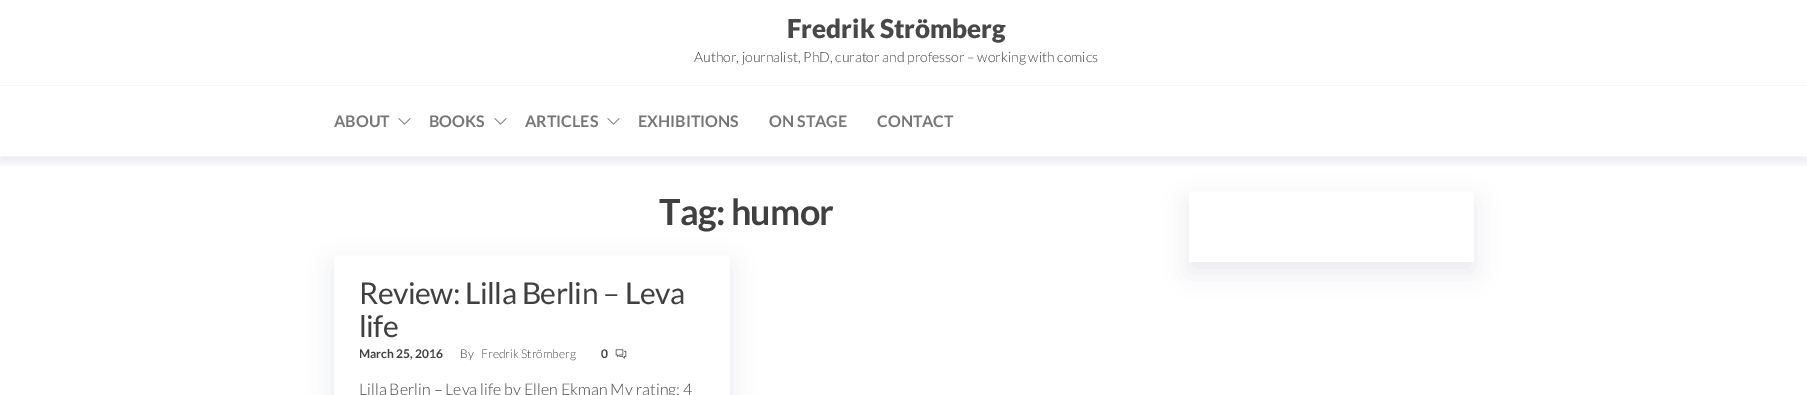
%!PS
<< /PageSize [1807 395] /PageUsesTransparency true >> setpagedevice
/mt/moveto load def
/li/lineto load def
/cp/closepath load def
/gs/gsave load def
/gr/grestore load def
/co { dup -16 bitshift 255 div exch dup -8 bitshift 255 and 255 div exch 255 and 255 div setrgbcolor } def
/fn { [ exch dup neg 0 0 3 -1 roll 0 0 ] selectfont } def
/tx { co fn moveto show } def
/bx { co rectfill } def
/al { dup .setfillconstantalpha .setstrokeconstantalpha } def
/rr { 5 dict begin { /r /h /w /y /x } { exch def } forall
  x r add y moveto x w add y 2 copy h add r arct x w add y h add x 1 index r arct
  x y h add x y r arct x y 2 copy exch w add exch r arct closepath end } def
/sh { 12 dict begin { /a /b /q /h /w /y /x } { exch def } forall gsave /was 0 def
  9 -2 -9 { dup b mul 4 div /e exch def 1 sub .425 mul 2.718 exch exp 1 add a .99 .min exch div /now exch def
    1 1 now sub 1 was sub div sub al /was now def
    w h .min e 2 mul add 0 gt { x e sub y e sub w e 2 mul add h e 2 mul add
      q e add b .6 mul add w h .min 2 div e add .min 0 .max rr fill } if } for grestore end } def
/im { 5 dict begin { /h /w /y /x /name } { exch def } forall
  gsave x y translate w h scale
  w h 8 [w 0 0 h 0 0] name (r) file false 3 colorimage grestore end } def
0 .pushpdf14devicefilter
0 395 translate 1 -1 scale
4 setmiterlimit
0 0 1807 395 16#FFFFFF bx
gs
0 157 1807 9 rectclip
16#192D78 co
0 91 1807 71 0 5 .1 sh
gr
0 85 1807 1 16#F6F6F6 bx
0 156 1807 1 16#F6F6F6 bx
(media/1.raw) 398 118 13 7 im
(media/1.raw) 494 118 13 7 im
(media/1.raw) 607 118 13 7 im
gs
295 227 mt 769 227 li 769 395 li 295 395 li cp 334 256 mt 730 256 li 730 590 li 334 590 li cp eoclip newpath
16#192D6E co
334 266 396 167 0 12.5 .1 sh
gr
(media/2.raw) 615 349 12 10 im
gs
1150 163 mt 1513 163 li 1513 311 li 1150 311 li cp 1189 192 mt 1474 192 li 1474 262 li 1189 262 li cp eoclip newpath
16#1C2D71 co
1189 202 285 70 0 12.5 .1 sh
gr
(Fredrik Strömberg) 787 38 /Lato-Black 26 16#484848 tx
(Author, journalist, PhD, curator and professor – working with comics) 694 62 /Lato-Light 14 16#404040 tx
(ABOUT) 334 127 /Lato-Bold 16 16#777777 tx
(BOOKS) 429 127 /Lato-Bold 16 16#777777 tx
(ARTICLES) 525 127 /Lato-Bold 16 16#777777 tx
(EXHIBITIONS) 638 127 /Lato-Bold 16 16#777777 tx
(ON STAGE) 769 127 /Lato-Bold 16 16#777777 tx
(CONTACT) 877 127 /Lato-Bold 16 16#777777 tx
/Lato-Bold 36 fn
16#404040 co
659 225 mt -.75 0 (Tag: humor) ashow
/Lato-Regular 30 fn
359 304 mt -.5 0 (Review: Lilla Berlin – Leva) ashow
359 337 mt -.5 0 (life) ashow
(March 25, 2016) 359 358 /Lato-Bold 12 16#404040 tx
(By) 460 358 /Lato-Light 12 16#404040 tx
(Fredrik Strömberg) 481 358 /Lato-Light 12 16#484848 tx
(0) 601 358 /Lato-Bold 12 16#404040 tx
(Lilla Berlin – Leva life by Ellen Ekman My rating: 4) 359 395 /Lato-Light 16 16#404040 tx
.poppdf14devicefilter showpage
